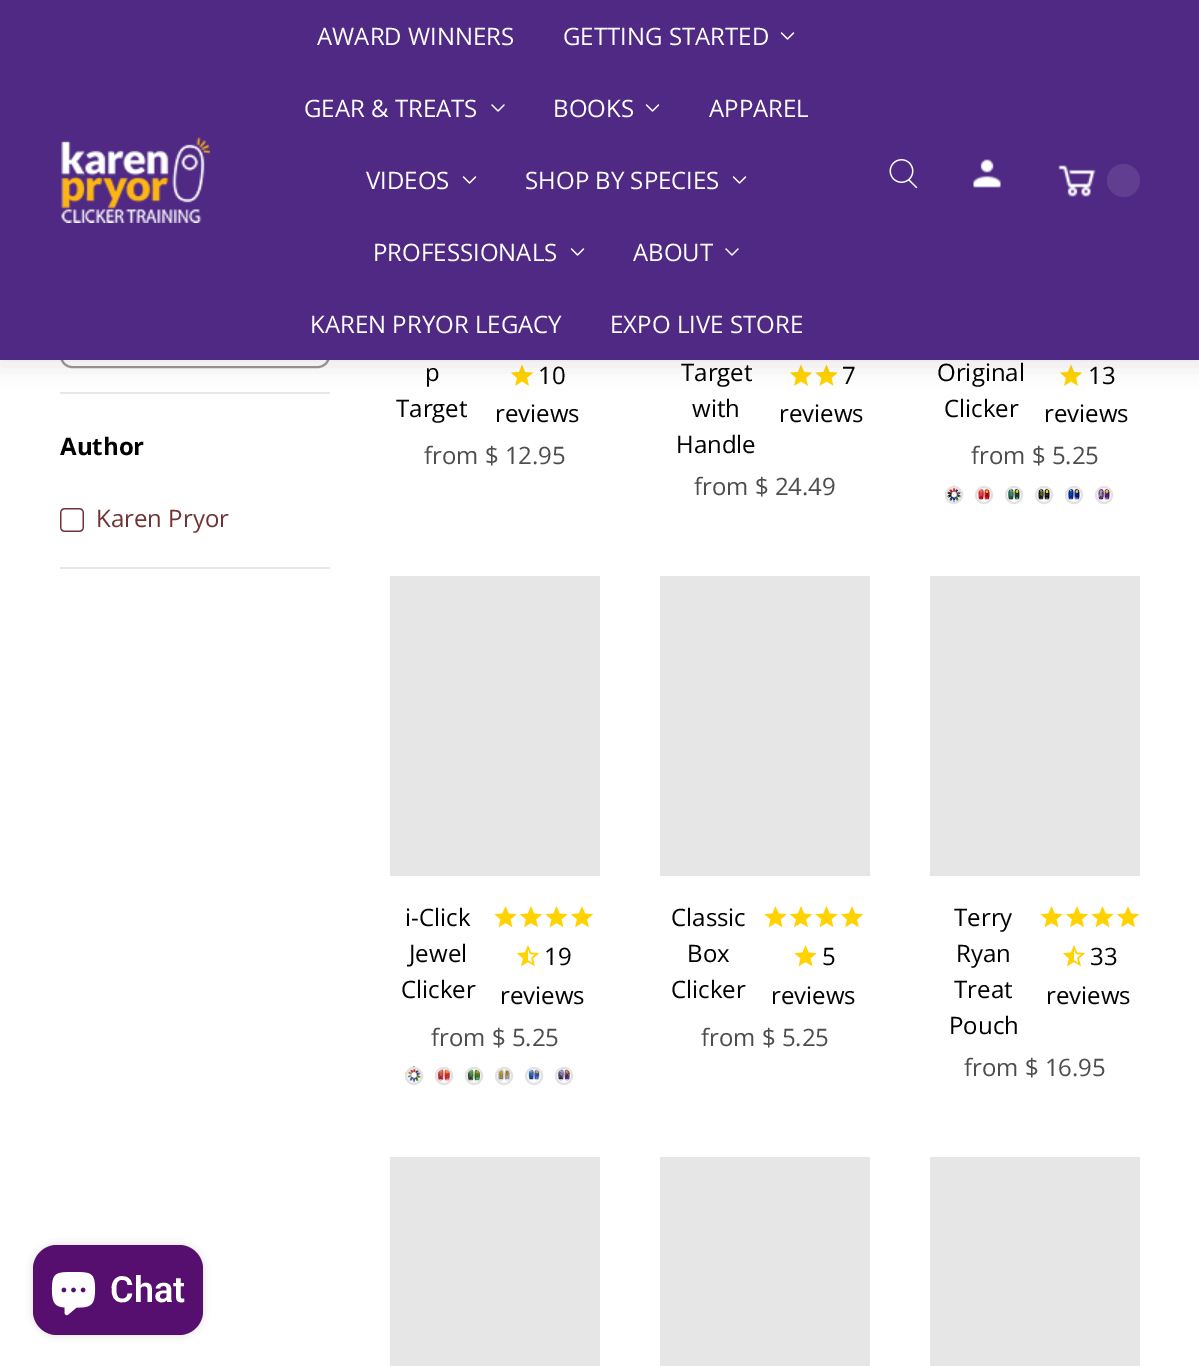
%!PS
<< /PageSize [1199 1366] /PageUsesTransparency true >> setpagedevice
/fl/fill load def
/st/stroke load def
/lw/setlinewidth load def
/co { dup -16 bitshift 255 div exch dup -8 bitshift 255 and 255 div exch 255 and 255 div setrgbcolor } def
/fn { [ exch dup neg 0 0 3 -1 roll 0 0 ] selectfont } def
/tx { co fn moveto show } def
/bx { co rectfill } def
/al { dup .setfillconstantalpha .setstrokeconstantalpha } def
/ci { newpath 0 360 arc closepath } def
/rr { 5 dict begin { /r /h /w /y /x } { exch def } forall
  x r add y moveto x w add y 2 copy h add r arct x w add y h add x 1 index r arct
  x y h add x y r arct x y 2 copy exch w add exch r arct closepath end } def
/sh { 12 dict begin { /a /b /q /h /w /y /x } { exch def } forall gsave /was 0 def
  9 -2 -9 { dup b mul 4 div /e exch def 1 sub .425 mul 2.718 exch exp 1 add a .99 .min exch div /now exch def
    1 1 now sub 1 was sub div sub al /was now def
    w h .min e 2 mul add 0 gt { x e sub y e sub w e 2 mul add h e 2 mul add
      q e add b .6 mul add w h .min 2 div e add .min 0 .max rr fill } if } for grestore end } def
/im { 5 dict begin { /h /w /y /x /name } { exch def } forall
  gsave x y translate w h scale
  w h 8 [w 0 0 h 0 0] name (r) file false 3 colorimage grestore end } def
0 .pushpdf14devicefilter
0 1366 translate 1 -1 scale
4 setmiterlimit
0 0 1199 1366 16#FFFFFF bx
60 392 270 2 16#E7E7E7 bx
16#999999 co
2 lw
61 295 268 72 11 rr st
(media/8.raw) 510 364 24 22 im
(media/8.raw) 789 364 24 22 im
(media/9.raw) 815 364 23 22 im
(media/8.raw) 1059 364 24 22 im
16#000000 co
-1 -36 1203 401 0 12 .1 sh
0 0 1199 360 16#4F2984 bx
(media/1.raw) 61 137 149 86 im
(media/2.raw) 780 32 15 8 im
(media/3.raw) 491 104 14 8 im
(media/2.raw) 645 104 15 8 im
(media/2.raw) 462 176 15 8 im
(media/2.raw) 732 176 15 8 im
(media/2.raw) 570 248 15 8 im
(media/3.raw) 725 248 14 8 im
(media/4.raw) 889 159 29 30 im
(media/5.raw) 973 159 28 29 im
(media/6.raw) 1058 165 38 32 im
16#613E90 co
1123.5 180.5 16.5 ci fl
60 567 270 2 16#E7E7E7 bx
(media/7.raw) 60 508 24 24 im
(media/10.raw) 945 485 18 19 im
16#E2E2E2 co
954 495 8 ci st
(media/11.raw) 975 487 18 16 im
984 495 8 ci st
(media/12.raw) 1006 487 16 16 im
1014 495 8 ci st
(media/13.raw) 1035 486 17 17 im
1044 495 8 ci st
(media/14.raw) 1065 486 18 17 im
1074 495 8 ci st
(media/15.raw) 1095 486 18 17 im
1104 495 8 ci st
390 576 210 300 16#E6E6E6 bx
(media/16.raw) 494 906 23 22 im
(media/17.raw) 519 906 24 22 im
(media/16.raw) 545 906 23 22 im
(media/17.raw) 570 906 24 22 im
(media/18.raw) 516 945 24 22 im
(media/19.raw) 405 1066 18 17 im
16#E2E2E2 co
414 1076 8 ci st
(media/20.raw) 435 1066 18 17 im
444 1076 8 ci st
(media/21.raw) 465 1066 18 17 im
474 1076 8 ci st
(media/22.raw) 495 1066 18 17 im
504 1076 8 ci st
(media/23.raw) 525 1067 18 16 im
534 1076 8 ci st
(media/24.raw) 557 1066 13 17 im
564 1076 8 ci st
660 576 210 300 16#E6E6E6 bx
(media/16.raw) 764 906 23 22 im
(media/17.raw) 789 906 24 22 im
(media/16.raw) 815 906 23 22 im
(media/17.raw) 840 906 24 22 im
(media/16.raw) 794 945 23 22 im
930 576 210 300 16#E6E6E6 bx
(media/16.raw) 1040 906 23 22 im
(media/17.raw) 1065 906 24 22 im
(media/16.raw) 1091 906 23 22 im
(media/17.raw) 1116 906 24 22 im
(media/18.raw) 1062 945 24 22 im
390 1157 210 209 16#E6E6E6 bx
660 1157 210 209 16#E6E6E6 bx
930 1157 210 209 16#E6E6E6 bx
16#000000 co
33 1245 170 90 24 4 .15 sh
16#560F6E co
33 1245 170 90 24 rr fl
(media/25.raw) 51 1272 45 44 im
(AWARD WINNERS) 317 45 /OpenSans-Regular 24 16#FFFFFF tx
(GETTING STARTED) 563 45 /OpenSans-Regular 24 16#FFFFFF tx
(GEAR & TREATS) 304 117 /OpenSans-Regular 24 16#FFFFFF tx
(BOOKS) 553 117 /OpenSans-Regular 24 16#FFFFFF tx
(APPAREL) 709 117 /OpenSans-Regular 24 16#FFFFFF tx
(VIDEOS) 366 189 /OpenSans-Regular 24 16#FFFFFF tx
(SHOP BY SPECIES) 525 189 /OpenSans-Regular 24 16#FFFFFF tx
(PROFESSIONALS) 373 261 /OpenSans-Regular 24 16#FFFFFF tx
(ABOUT) 633 261 /OpenSans-Regular 24 16#FFFFFF tx
(KAREN PRYOR LEGACY) 310 333 /OpenSans-Regular 24 16#FFFFFF tx
(EXPO LIVE STORE) 610 333 /OpenSans-Regular 24 16#FFFFFF tx
(Author) 60 455 /OpenSans-Bold 24 16#000000 tx
(Karen Pryor) 96 527 /OpenSans-Regular 24 16#713434 tx
(p) 425 381 /OpenSans-Regular 24 16#000000 tx
(Target) 396 417 /OpenSans-Regular 24 16#000000 tx
(10) 538 384 /OpenSans-Regular 24 16#000000 tx
(reviews) 495 422 /OpenSans-Regular 24 16#000000 tx
(from $ 12.95) 424 464 /OpenSans-Regular 24 16#4D4D4D tx
(Target) 681 381 /OpenSans-Regular 24 16#000000 tx
(with) 692 417 /OpenSans-Regular 24 16#000000 tx
(Handle) 676 453 /OpenSans-Regular 24 16#000000 tx
(7) 842 384 /OpenSans-Regular 24 16#000000 tx
(reviews) 779 422 /OpenSans-Regular 24 16#000000 tx
(from $ 24.49) 694 495 /OpenSans-Regular 24 16#4D4D4D tx
(Original) 937 381 /OpenSans-Regular 24 16#000000 tx
(Clicker) 944 417 /OpenSans-Regular 24 16#000000 tx
(13) 1088 384 /OpenSans-Regular 24 16#000000 tx
(reviews) 1044 422 /OpenSans-Regular 24 16#000000 tx
(from $ 5.25) 971 464 /OpenSans-Regular 24 16#4D4D4D tx
(i-Click) 405 926 /OpenSans-Regular 24 16#000000 tx
(Jewel) 409 962 /OpenSans-Regular 24 16#000000 tx
(Clicker) 401 998 /OpenSans-Regular 24 16#000000 tx
(19) 544 965 /OpenSans-Regular 24 16#000000 tx
(reviews) 500 1004 /OpenSans-Regular 24 16#000000 tx
(from $ 5.25) 431 1046 /OpenSans-Regular 24 16#4D4D4D tx
(Classic) 671 926 /OpenSans-Regular 24 16#000000 tx
(Box) 687 962 /OpenSans-Regular 24 16#000000 tx
(Clicker) 671 998 /OpenSans-Regular 24 16#000000 tx
(5) 822 965 /OpenSans-Regular 24 16#000000 tx
(reviews) 771 1004 /OpenSans-Regular 24 16#000000 tx
(from $ 5.25) 701 1046 /OpenSans-Regular 24 16#4D4D4D tx
(Terry) 954 926 /OpenSans-Regular 24 16#000000 tx
(Ryan) 956 962 /OpenSans-Regular 24 16#000000 tx
(Treat) 954 998 /OpenSans-Regular 24 16#000000 tx
(Pouch) 949 1034 /OpenSans-Regular 24 16#000000 tx
(33) 1090 965 /OpenSans-Regular 24 16#000000 tx
(reviews) 1046 1004 /OpenSans-Regular 24 16#000000 tx
(from $ 16.95) 964 1076 /OpenSans-Regular 24 16#4D4D4D tx
(Chat) 110 1302 /Roboto-SemiBold 36 16#FFFFFF tx
.poppdf14devicefilter showpage
